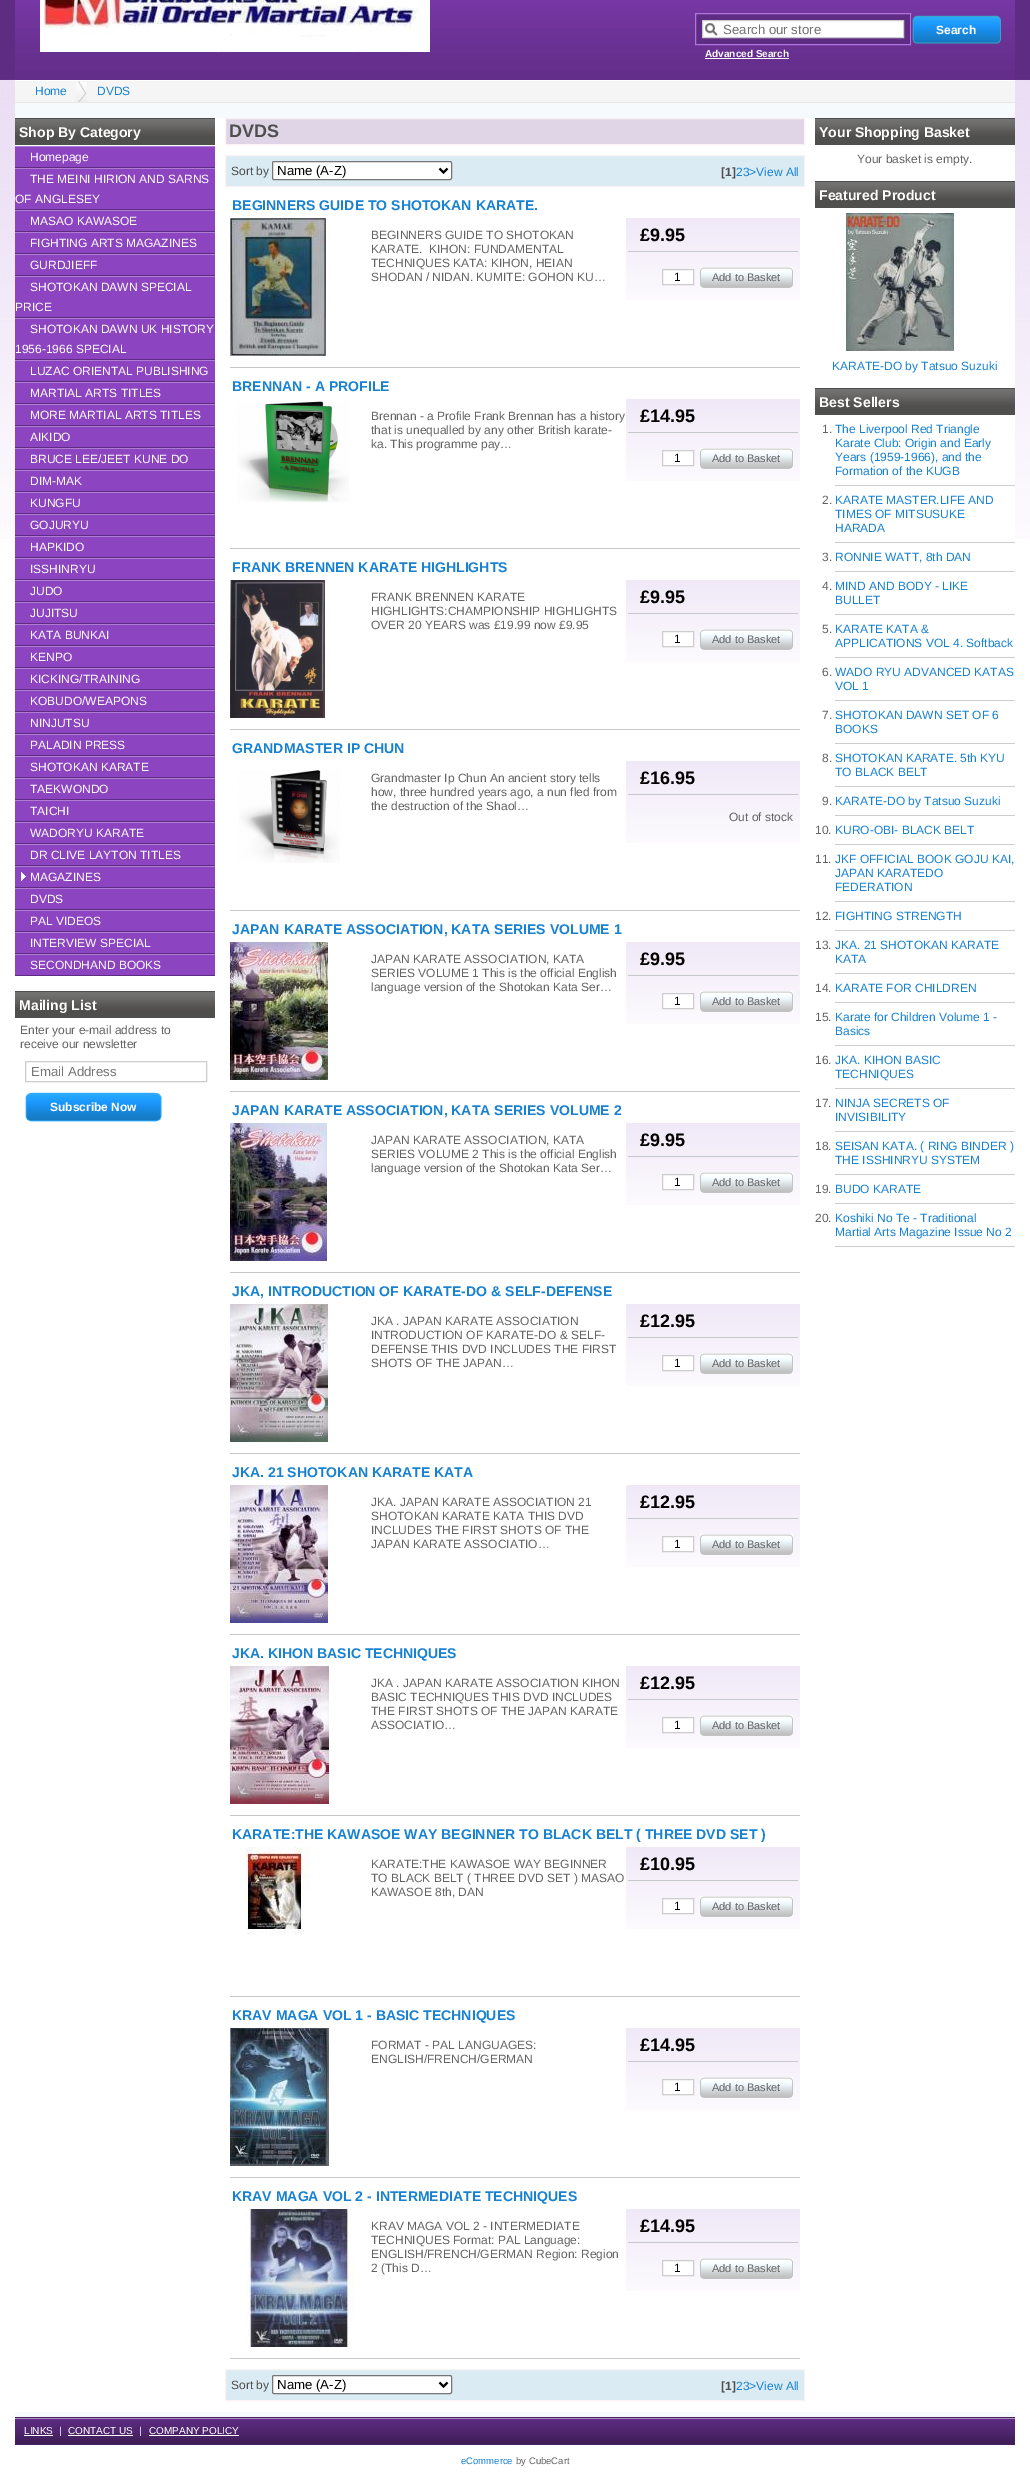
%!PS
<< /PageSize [1030 2476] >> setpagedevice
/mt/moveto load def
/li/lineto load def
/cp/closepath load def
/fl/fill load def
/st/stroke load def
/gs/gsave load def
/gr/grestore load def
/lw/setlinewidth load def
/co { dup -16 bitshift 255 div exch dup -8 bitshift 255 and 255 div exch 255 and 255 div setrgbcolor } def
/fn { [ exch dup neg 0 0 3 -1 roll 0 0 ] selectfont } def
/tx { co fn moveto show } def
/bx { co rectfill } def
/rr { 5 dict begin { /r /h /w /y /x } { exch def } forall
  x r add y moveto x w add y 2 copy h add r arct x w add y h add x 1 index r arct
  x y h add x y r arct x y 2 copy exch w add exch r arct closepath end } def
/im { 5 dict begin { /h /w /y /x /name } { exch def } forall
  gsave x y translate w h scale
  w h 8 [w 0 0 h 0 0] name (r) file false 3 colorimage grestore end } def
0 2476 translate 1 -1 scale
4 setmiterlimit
0 0 1030 2476 16#FFFFFF bx
(media/1.raw) 0 0 1030 539 im
15 103 1000 2314 16#F6FAFC bx
(media/2.raw) 15 0 1000 80 im
15 80 1000 1 16#FFFFFF bx
(media/3.raw) 40 0 390 52 im
16#5E2C83 co
695.5 13.5 mt 910.5 13.5 li 910.5 44.5 li 695.5 44.5 li cp gs fl gr
16#B273DE co
st
703 21 200 16 16#FFFFFF bx
(media/4.raw) 705 23 13 13 im
16#CDCDCD co
702.5 20.5 201 17 rectstroke
(media/5.raw) 911 15 90 30 im
705 58 84 1 16#FFFFFF bx
15 81 1000 21 16#F5F5F5 bx
15 102 1000 1 16#EAE6E6 bx
(media/6.raw) 76 81 11 21 im
15 118 1000 2294 16#FFFFFF bx
(media/7.raw) 15 119 200 26 im
15 118 200 1 16#4F4F4F bx
15 147 200 20 16#8C44C1 bx
15 146 200 1 16#AE7CD3 bx
15 167 200 1 16#5E2C83 bx
15 169 200 40 16#8C44C1 bx
15 168 200 1 16#AE7CD3 bx
15 209 200 1 16#5E2C83 bx
15 211 200 20 16#8C44C1 bx
15 210 200 1 16#AE7CD3 bx
15 231 200 1 16#5E2C83 bx
15 233 200 20 16#8C44C1 bx
15 232 200 1 16#AE7CD3 bx
15 253 200 1 16#5E2C83 bx
15 255 200 20 16#8C44C1 bx
15 254 200 1 16#AE7CD3 bx
15 275 200 1 16#5E2C83 bx
15 277 200 40 16#8C44C1 bx
15 276 200 1 16#AE7CD3 bx
15 317 200 1 16#5E2C83 bx
15 319 200 40 16#8C44C1 bx
15 318 200 1 16#AE7CD3 bx
15 359 200 1 16#5E2C83 bx
15 361 200 20 16#8C44C1 bx
15 360 200 1 16#AE7CD3 bx
15 381 200 1 16#5E2C83 bx
15 383 200 20 16#8C44C1 bx
15 382 200 1 16#AE7CD3 bx
15 403 200 1 16#5E2C83 bx
15 405 200 20 16#8C44C1 bx
15 404 200 1 16#AE7CD3 bx
15 425 200 1 16#5E2C83 bx
15 427 200 20 16#8C44C1 bx
15 426 200 1 16#AE7CD3 bx
15 447 200 1 16#5E2C83 bx
15 449 200 20 16#8C44C1 bx
15 448 200 1 16#AE7CD3 bx
15 469 200 1 16#5E2C83 bx
15 471 200 20 16#8C44C1 bx
15 470 200 1 16#AE7CD3 bx
15 491 200 1 16#5E2C83 bx
15 493 200 20 16#8C44C1 bx
15 492 200 1 16#AE7CD3 bx
15 513 200 1 16#5E2C83 bx
15 515 200 20 16#8C44C1 bx
15 514 200 1 16#AE7CD3 bx
15 535 200 1 16#5E2C83 bx
15 537 200 20 16#8C44C1 bx
15 536 200 1 16#AE7CD3 bx
15 557 200 1 16#5E2C83 bx
15 559 200 20 16#8C44C1 bx
15 558 200 1 16#AE7CD3 bx
15 579 200 1 16#5E2C83 bx
15 581 200 20 16#8C44C1 bx
15 580 200 1 16#AE7CD3 bx
15 601 200 1 16#5E2C83 bx
15 603 200 20 16#8C44C1 bx
15 602 200 1 16#AE7CD3 bx
15 623 200 1 16#5E2C83 bx
15 625 200 20 16#8C44C1 bx
15 624 200 1 16#AE7CD3 bx
15 645 200 1 16#5E2C83 bx
15 647 200 20 16#8C44C1 bx
15 646 200 1 16#AE7CD3 bx
15 667 200 1 16#5E2C83 bx
15 669 200 20 16#8C44C1 bx
15 668 200 1 16#AE7CD3 bx
15 689 200 1 16#5E2C83 bx
15 691 200 20 16#8C44C1 bx
15 690 200 1 16#AE7CD3 bx
15 711 200 1 16#5E2C83 bx
15 713 200 20 16#8C44C1 bx
15 712 200 1 16#AE7CD3 bx
15 733 200 1 16#5E2C83 bx
15 735 200 20 16#8C44C1 bx
15 734 200 1 16#AE7CD3 bx
15 755 200 1 16#5E2C83 bx
15 757 200 20 16#8C44C1 bx
15 756 200 1 16#AE7CD3 bx
15 777 200 1 16#5E2C83 bx
15 779 200 20 16#8C44C1 bx
15 778 200 1 16#AE7CD3 bx
15 799 200 1 16#5E2C83 bx
15 801 200 20 16#8C44C1 bx
15 800 200 1 16#AE7CD3 bx
15 821 200 1 16#5E2C83 bx
15 823 200 20 16#8C44C1 bx
15 822 200 1 16#AE7CD3 bx
15 843 200 1 16#5E2C83 bx
15 845 200 20 16#8C44C1 bx
15 844 200 1 16#AE7CD3 bx
15 865 200 1 16#5E2C83 bx
15 867 200 20 16#8C44C1 bx
(media/8.raw) 21 872 5 9 im
15 866 200 1 16#AE7CD3 bx
15 887 200 1 16#5E2C83 bx
15 889 200 20 16#8C44C1 bx
15 888 200 1 16#AE7CD3 bx
15 909 200 1 16#5E2C83 bx
15 911 200 20 16#8C44C1 bx
15 910 200 1 16#AE7CD3 bx
15 931 200 1 16#5E2C83 bx
15 933 200 20 16#8C44C1 bx
15 932 200 1 16#AE7CD3 bx
15 953 200 1 16#5E2C83 bx
15 955 200 20 16#8C44C1 bx
15 954 200 1 16#AE7CD3 bx
15 975 200 1 16#5E2C83 bx
(media/7.raw) 15 992 200 26 im
15 991 200 1 16#4F4F4F bx
16#CDCDCD co
25.5 1061.5 181 20 rectstroke
(media/9.raw) 25 1092 137 30 im
16#E0D5E6 co
225.5 118.5 mt 804.5 118.5 li 804.5 144.5 li 225.5 144.5 li cp gs fl gr
16#FBF2F3 co
st
16#DAEBF3 co
225.5 155.5 mt 804.5 155.5 li 804.5 186.5 li 225.5 186.5 li cp gs fl gr
16#FAF3F3 co
st
16#FFFFFF co
272.5 161.5 179 18 1.5 rr gs fl gr
16#767676 co
st
16#000000 co
2 lw
439.5 168.5 mt 443.5 172.5 li 447.5 168.5 li st
230 367 570 1 16#C4C8C8 bx
(media/10.raw) 230 218 96 138 im
(media/11.raw) 626 218 174 82 im
628 251 170 1 16#C4C8C8 bx
16#FFFFFF co
662.5 269.5 mt 693.5 269.5 li 693.5 284.5 li 662.5 284.5 li cp gs fl gr
16#CDCDCD co
1 lw
st
(media/12.raw) 700 267 93 21 im
230 548 570 1 16#C4C8C8 bx
(media/13.raw) 237 401 112 102 im
(media/11.raw) 626 399 174 82 im
628 432 170 1 16#C4C8C8 bx
16#FFFFFF co
662.5 450.5 mt 693.5 450.5 li 693.5 465.5 li 662.5 465.5 li cp gs fl gr
16#CDCDCD co
st
(media/12.raw) 700 448 93 21 im
230 729 570 1 16#C4C8C8 bx
(media/14.raw) 230 580 95 138 im
(media/11.raw) 626 580 174 82 im
628 613 170 1 16#C4C8C8 bx
16#FFFFFF co
662.5 631.5 mt 693.5 631.5 li 693.5 646.5 li 662.5 646.5 li cp gs fl gr
16#CDCDCD co
st
(media/12.raw) 700 629 93 21 im
230 910 570 1 16#C4C8C8 bx
(media/15.raw) 239 770 101 93 im
(media/11.raw) 626 761 174 82 im
628 794 170 1 16#C4C8C8 bx
230 1091 570 1 16#C4C8C8 bx
(media/16.raw) 230 942 98 138 im
(media/11.raw) 626 942 174 82 im
628 975 170 1 16#C4C8C8 bx
16#FFFFFF co
662.5 993.5 mt 693.5 993.5 li 693.5 1008.5 li 662.5 1008.5 li cp gs fl gr
16#CDCDCD co
st
(media/12.raw) 700 991 93 21 im
230 1272 570 1 16#C4C8C8 bx
(media/17.raw) 230 1123 97 138 im
(media/11.raw) 626 1123 174 82 im
628 1156 170 1 16#C4C8C8 bx
16#FFFFFF co
662.5 1174.5 mt 693.5 1174.5 li 693.5 1189.5 li 662.5 1189.5 li cp gs fl gr
16#CDCDCD co
st
(media/12.raw) 700 1172 93 21 im
230 1453 570 1 16#C4C8C8 bx
(media/18.raw) 230 1304 98 138 im
(media/11.raw) 626 1304 174 82 im
628 1337 170 1 16#C4C8C8 bx
16#FFFFFF co
662.5 1355.5 mt 693.5 1355.5 li 693.5 1370.5 li 662.5 1370.5 li cp gs fl gr
16#CDCDCD co
st
(media/12.raw) 700 1353 93 21 im
230 1634 570 1 16#C4C8C8 bx
(media/19.raw) 230 1485 98 138 im
(media/11.raw) 626 1485 174 82 im
628 1518 170 1 16#C4C8C8 bx
16#FFFFFF co
662.5 1536.5 mt 693.5 1536.5 li 693.5 1551.5 li 662.5 1551.5 li cp gs fl gr
16#CDCDCD co
st
(media/12.raw) 700 1534 93 21 im
230 1815 570 1 16#C4C8C8 bx
(media/20.raw) 230 1666 99 138 im
(media/11.raw) 626 1666 174 82 im
628 1699 170 1 16#C4C8C8 bx
16#FFFFFF co
662.5 1717.5 mt 693.5 1717.5 li 693.5 1732.5 li 662.5 1732.5 li cp gs fl gr
16#CDCDCD co
st
(media/12.raw) 700 1715 93 21 im
230 1996 570 1 16#C4C8C8 bx
(media/21.raw) 245 1847 65 88 im
(media/11.raw) 626 1847 174 82 im
628 1880 170 1 16#C4C8C8 bx
16#FFFFFF co
662.5 1898.5 mt 693.5 1898.5 li 693.5 1913.5 li 662.5 1913.5 li cp gs fl gr
16#CDCDCD co
st
(media/12.raw) 700 1896 93 21 im
230 2177 570 1 16#C4C8C8 bx
(media/22.raw) 230 2028 99 138 im
(media/11.raw) 626 2028 174 82 im
628 2061 170 1 16#C4C8C8 bx
16#FFFFFF co
662.5 2079.5 mt 693.5 2079.5 li 693.5 2094.5 li 662.5 2094.5 li cp gs fl gr
16#CDCDCD co
st
(media/12.raw) 700 2077 93 21 im
230 2358 570 1 16#C4C8C8 bx
(media/23.raw) 246 2209 109 138 im
(media/11.raw) 626 2209 174 82 im
628 2242 170 1 16#C4C8C8 bx
16#FFFFFF co
662.5 2260.5 mt 693.5 2260.5 li 693.5 2275.5 li 662.5 2275.5 li cp gs fl gr
16#CDCDCD co
st
(media/12.raw) 700 2258 93 21 im
16#DAEBF3 co
225.5 2369.5 mt 804.5 2369.5 li 804.5 2400.5 li 225.5 2400.5 li cp gs fl gr
16#FAF3F3 co
st
16#FFFFFF co
272.5 2375.5 179 18 1.5 rr gs fl gr
16#767676 co
st
16#000000 co
2 lw
439.5 2382.5 mt 443.5 2386.5 li 447.5 2382.5 li st
(media/7.raw) 815 119 200 26 im
815 118 200 1 16#4F4F4F bx
(media/7.raw) 815 182 200 26 im
815 181 200 1 16#4F4F4F bx
(media/24.raw) 846 213 108 138 im
(media/7.raw) 815 389 200 26 im
815 388 200 1 16#4F4F4F bx
835 485 180 1 16#CDCDCD bx
835 542 180 1 16#CDCDCD bx
835 571 180 1 16#CDCDCD bx
835 614 180 1 16#CDCDCD bx
835 657 180 1 16#CDCDCD bx
835 700 180 1 16#CDCDCD bx
835 743 180 1 16#CDCDCD bx
835 786 180 1 16#CDCDCD bx
835 815 180 1 16#CDCDCD bx
835 844 180 1 16#CDCDCD bx
835 901 180 1 16#CDCDCD bx
835 930 180 1 16#CDCDCD bx
835 973 180 1 16#CDCDCD bx
835 1002 180 1 16#CDCDCD bx
835 1045 180 1 16#CDCDCD bx
835 1088 180 1 16#CDCDCD bx
835 1131 180 1 16#CDCDCD bx
835 1174 180 1 16#CDCDCD bx
835 1203 180 1 16#CDCDCD bx
835 1246 180 1 16#CDCDCD bx
(media/25.raw) 15 2417 1000 28 im
24 2435 29 1 16#FFFFFF bx
68 2435 65 1 16#FFFFFF bx
149 2435 90 1 16#FFFFFF bx
(Search our store) 723 34 /LiberationSans-Regular 13.25 16#717171 tx
(Search) 936 34 /LiberationSans-Bold 12 16#FFFFFF tx
(Advanced Search) 705 57 /LiberationSans-Bold 10 16#FFFFFF tx
(Home) 35 95 /LiberationSans-Regular 12 16#1781D2 tx
(DVDS) 97 95 /LiberationSans-Regular 12 16#1781D2 tx
(Shop By Category) 19 137 /LiberationSans-Bold 14.05 16#FFFFFF tx
(Homepage) 30 161 /LiberationSans-Regular 12 16#FFFFFF tx
(THE MEINI HIRION AND SARNS) 30 183 /LiberationSans-Regular 12 16#FFFFFF tx
(OF ANGLESEY) 15 203 /LiberationSans-Regular 12 16#FFFFFF tx
(MASAO KAWASOE) 30 225 /LiberationSans-Regular 12 16#FFFFFF tx
(FIGHTING ARTS MAGAZINES) 30 247 /LiberationSans-Regular 12 16#FFFFFF tx
(GURDJIEFF) 30 269 /LiberationSans-Regular 12 16#FFFFFF tx
(SHOTOKAN DAWN SPECIAL) 30 291 /LiberationSans-Regular 12 16#FFFFFF tx
(PRICE) 15 311 /LiberationSans-Regular 12 16#FFFFFF tx
(SHOTOKAN DAWN UK HISTORY) 30 333 /LiberationSans-Regular 12 16#FFFFFF tx
(1956-1966 SPECIAL) 15 353 /LiberationSans-Regular 12 16#FFFFFF tx
(LUZAC ORIENTAL PUBLISHING) 30 375 /LiberationSans-Regular 12 16#FFFFFF tx
(MARTIAL ARTS TITLES) 30 397 /LiberationSans-Regular 12 16#FFFFFF tx
(MORE MARTIAL ARTS TITLES) 30 419 /LiberationSans-Regular 12 16#FFFFFF tx
(AIKIDO) 30 441 /LiberationSans-Regular 12 16#FFFFFF tx
(BRUCE LEE/JEET KUNE DO) 30 463 /LiberationSans-Regular 12 16#FFFFFF tx
(DIM-MAK) 30 485 /LiberationSans-Regular 12 16#FFFFFF tx
(KUNGFU) 30 507 /LiberationSans-Regular 12 16#FFFFFF tx
(GOJURYU) 30 529 /LiberationSans-Regular 12 16#FFFFFF tx
(HAPKIDO) 30 551 /LiberationSans-Regular 12 16#FFFFFF tx
(ISSHINRYU) 30 573 /LiberationSans-Regular 12 16#FFFFFF tx
(JUDO) 30 595 /LiberationSans-Regular 12 16#FFFFFF tx
(JUJITSU) 30 617 /LiberationSans-Regular 12 16#FFFFFF tx
(KATA BUNKAI) 30 639 /LiberationSans-Regular 12 16#FFFFFF tx
(KENPO) 30 661 /LiberationSans-Regular 12 16#FFFFFF tx
(KICKING/TRAINING) 30 683 /LiberationSans-Regular 12 16#FFFFFF tx
(KOBUDO/WEAPONS) 30 705 /LiberationSans-Regular 12 16#FFFFFF tx
(NINJUTSU) 30 727 /LiberationSans-Regular 12 16#FFFFFF tx
(PALADIN PRESS) 30 749 /LiberationSans-Regular 12 16#FFFFFF tx
(SHOTOKAN KARATE) 30 771 /LiberationSans-Regular 12 16#FFFFFF tx
(TAEKWONDO) 30 793 /LiberationSans-Regular 12 16#FFFFFF tx
(TAICHI) 30 815 /LiberationSans-Regular 12 16#FFFFFF tx
(WADORYU KARATE) 30 837 /LiberationSans-Regular 12 16#FFFFFF tx
(DR CLIVE LAYTON TITLES) 30 859 /LiberationSans-Regular 12 16#FFFFFF tx
(MAGAZINES) 30 881 /LiberationSans-Regular 12 16#FFFFFF tx
(DVDS) 30 903 /LiberationSans-Regular 12 16#FFFFFF tx
(PAL VIDEOS) 30 925 /LiberationSans-Regular 12 16#FFFFFF tx
(INTERVIEW SPECIAL) 30 947 /LiberationSans-Regular 12 16#FFFFFF tx
(SECONDHAND BOOKS) 30 969 /LiberationSans-Regular 12 16#FFFFFF tx
(Mailing List) 19 1010 /LiberationSans-Bold 14.05 16#FFFFFF tx
(Enter your e-mail address to) 20 1034 /LiberationSans-Regular 12 16#636363 tx
(receive our newsletter) 20 1048 /LiberationSans-Regular 12 16#636363 tx
(Email Address) 31 1076 /LiberationSans-Regular 13.25 16#777777 tx
(Subscribe Now) 50 1111 /LiberationSans-Bold 12 16#FFFFFF tx
(DVDS) 229 137 /LiberationSans-Bold 18 16#4F4F4F tx
(Sort by) 231 175 /LiberationSans-Regular 12 16#4F4F4F tx
(Name \(A-Z\)) 277 175 /LiberationSans-Regular 13.25 16#000000 tx
([1]) 721 176 /LiberationSans-Bold 12 16#4F4F4F tx
(23>View All) 736 176 /LiberationSans-Regular 12 16#1781D2 tx
(BEGINNERS GUIDE TO SHOTOKAN KARATE.) 232 210 /LiberationSans-Bold 14.05 16#1781D2 tx
(BEGINNERS GUIDE TO SHOTOKAN) 371 239 /LiberationSans-Regular 12 16#636363 tx
(KARATE.  KIHON: FUNDAMENTAL) 371 253 /LiberationSans-Regular 12 16#636363 tx
(TECHNIQUES KATA: KIHON, HEIAN) 371 267 /LiberationSans-Regular 12 16#636363 tx
(SHODAN / NIDAN. KUMITE: GOHON KU…) 371 281 /LiberationSans-Regular 12 16#636363 tx
(£9.95) 640 241 /LiberationSans-Bold 18 16#000000 tx
(1) 674 281 /LiberationSans-Regular 12 16#000000 tx
(Add to Basket) 712 281 /LiberationSans-Regular 11 16#636363 tx
(BRENNAN - A PROFILE) 232 391 /LiberationSans-Bold 14.05 16#1781D2 tx
(Brennan - a Profile Frank Brennan has a history) 371 420 /LiberationSans-Regular 12 16#636363 tx
(that is unequalled by any other British karate-) 371 434 /LiberationSans-Regular 12 16#636363 tx
(ka. This programme pay…) 371 448 /LiberationSans-Regular 12 16#636363 tx
(£14.95) 640 422 /LiberationSans-Bold 18 16#000000 tx
(1) 674 462 /LiberationSans-Regular 12 16#000000 tx
(Add to Basket) 712 462 /LiberationSans-Regular 11 16#636363 tx
(FRANK BRENNEN KARATE HIGHLIGHTS) 232 572 /LiberationSans-Bold 14.05 16#1781D2 tx
(FRANK BRENNEN KARATE) 371 601 /LiberationSans-Regular 12 16#636363 tx
(HIGHLIGHTS:CHAMPIONSHIP HIGHLIGHTS) 371 615 /LiberationSans-Regular 12 16#636363 tx
(OVER 20 YEARS was £19.99 now £9.95) 371 629 /LiberationSans-Regular 12 16#636363 tx
(£9.95) 640 603 /LiberationSans-Bold 18 16#000000 tx
(1) 674 643 /LiberationSans-Regular 12 16#000000 tx
(Add to Basket) 712 643 /LiberationSans-Regular 11 16#636363 tx
(GRANDMASTER IP CHUN) 232 753 /LiberationSans-Bold 14.05 16#1781D2 tx
(Grandmaster Ip Chun An ancient story tells) 371 782 /LiberationSans-Regular 12 16#636363 tx
(how, three hundred years ago, a nun fled from) 371 796 /LiberationSans-Regular 12 16#636363 tx
(the destruction of the Shaol…) 371 810 /LiberationSans-Regular 12 16#636363 tx
(£16.95) 640 784 /LiberationSans-Bold 18 16#000000 tx
(Out of stock) 729 821 /LiberationSans-Regular 12 16#636363 tx
(JAPAN KARATE ASSOCIATION, KATA SERIES VOLUME 1) 232 934 /LiberationSans-Bold 14.05 16#1781D2 tx
(JAPAN KARATE ASSOCIATION, KATA) 371 963 /LiberationSans-Regular 12 16#636363 tx
(SERIES VOLUME 1 This is the official English) 371 977 /LiberationSans-Regular 12 16#636363 tx
(language version of the Shotokan Kata Ser…) 371 991 /LiberationSans-Regular 12 16#636363 tx
(£9.95) 640 965 /LiberationSans-Bold 18 16#000000 tx
(1) 674 1005 /LiberationSans-Regular 12 16#000000 tx
(Add to Basket) 712 1005 /LiberationSans-Regular 11 16#636363 tx
(JAPAN KARATE ASSOCIATION, KATA SERIES VOLUME 2) 232 1115 /LiberationSans-Bold 14.05 16#1781D2 tx
(JAPAN KARATE ASSOCIATION, KATA) 371 1144 /LiberationSans-Regular 12 16#636363 tx
(SERIES VOLUME 2 This is the official English) 371 1158 /LiberationSans-Regular 12 16#636363 tx
(language version of the Shotokan Kata Ser…) 371 1172 /LiberationSans-Regular 12 16#636363 tx
(£9.95) 640 1146 /LiberationSans-Bold 18 16#000000 tx
(1) 674 1186 /LiberationSans-Regular 12 16#000000 tx
(Add to Basket) 712 1186 /LiberationSans-Regular 11 16#636363 tx
(JKA, INTRODUCTION OF KARATE-DO & SELF-DEFENSE) 232 1296 /LiberationSans-Bold 14.05 16#1781D2 tx
(JKA . JAPAN KARATE ASSOCIATION) 371 1325 /LiberationSans-Regular 12 16#636363 tx
(INTRODUCTION OF KARATE-DO & SELF-) 371 1339 /LiberationSans-Regular 12 16#636363 tx
(DEFENSE THIS DVD INCLUDES THE FIRST) 371 1353 /LiberationSans-Regular 12 16#636363 tx
(SHOTS OF THE JAPAN…) 371 1367 /LiberationSans-Regular 12 16#636363 tx
(£12.95) 640 1327 /LiberationSans-Bold 18 16#000000 tx
(1) 674 1367 /LiberationSans-Regular 12 16#000000 tx
(Add to Basket) 712 1367 /LiberationSans-Regular 11 16#636363 tx
(JKA. 21 SHOTOKAN KARATE KATA) 232 1477 /LiberationSans-Bold 14.05 16#1781D2 tx
(JKA. JAPAN KARATE ASSOCIATION 21) 371 1506 /LiberationSans-Regular 12 16#636363 tx
(SHOTOKAN KARATE KATA THIS DVD) 371 1520 /LiberationSans-Regular 12 16#636363 tx
(INCLUDES THE FIRST SHOTS OF THE) 371 1534 /LiberationSans-Regular 12 16#636363 tx
(JAPAN KARATE ASSOCIATIO…) 371 1548 /LiberationSans-Regular 12 16#636363 tx
(£12.95) 640 1508 /LiberationSans-Bold 18 16#000000 tx
(1) 674 1548 /LiberationSans-Regular 12 16#000000 tx
(Add to Basket) 712 1548 /LiberationSans-Regular 11 16#636363 tx
(JKA. KIHON BASIC TECHNIQUES) 232 1658 /LiberationSans-Bold 14.05 16#1781D2 tx
(JKA . JAPAN KARATE ASSOCIATION KIHON) 371 1687 /LiberationSans-Regular 12 16#636363 tx
(BASIC TECHNIQUES THIS DVD INCLUDES) 371 1701 /LiberationSans-Regular 12 16#636363 tx
(THE FIRST SHOTS OF THE JAPAN KARATE) 371 1715 /LiberationSans-Regular 12 16#636363 tx
(ASSOCIATIO…) 371 1729 /LiberationSans-Regular 12 16#636363 tx
(£12.95) 640 1689 /LiberationSans-Bold 18 16#000000 tx
(1) 674 1729 /LiberationSans-Regular 12 16#000000 tx
(Add to Basket) 712 1729 /LiberationSans-Regular 11 16#636363 tx
(KARATE:THE KAWASOE WAY BEGINNER TO BLACK BELT \( THREE DVD SET \)) 232 1839 /LiberationSans-Bold 14.05 16#1781D2 tx
(KARATE:THE KAWASOE WAY BEGINNER) 371 1868 /LiberationSans-Regular 12 16#636363 tx
(TO BLACK BELT \( THREE DVD SET \) MASAO) 371 1882 /LiberationSans-Regular 12 16#636363 tx
(KAWASOE 8th, DAN) 371 1896 /LiberationSans-Regular 12 16#636363 tx
(£10.95) 640 1870 /LiberationSans-Bold 18 16#000000 tx
(1) 674 1910 /LiberationSans-Regular 12 16#000000 tx
(Add to Basket) 712 1910 /LiberationSans-Regular 11 16#636363 tx
(KRAV MAGA VOL 1 - BASIC TECHNIQUES) 232 2020 /LiberationSans-Bold 14.05 16#1781D2 tx
(FORMAT - PAL LANGUAGES:) 371 2049 /LiberationSans-Regular 12 16#636363 tx
(ENGLISH/FRENCH/GERMAN) 371 2063 /LiberationSans-Regular 12 16#636363 tx
(£14.95) 640 2051 /LiberationSans-Bold 18 16#000000 tx
(1) 674 2091 /LiberationSans-Regular 12 16#000000 tx
(Add to Basket) 712 2091 /LiberationSans-Regular 11 16#636363 tx
(KRAV MAGA VOL 2 - INTERMEDIATE TECHNIQUES) 232 2201 /LiberationSans-Bold 14.05 16#1781D2 tx
(KRAV MAGA VOL 2 - INTERMEDIATE) 371 2230 /LiberationSans-Regular 12 16#636363 tx
(TECHNIQUES Format: PAL Language:) 371 2244 /LiberationSans-Regular 12 16#636363 tx
(ENGLISH/FRENCH/GERMAN Region: Region) 371 2258 /LiberationSans-Regular 12 16#636363 tx
(2 \(This D…) 371 2272 /LiberationSans-Regular 12 16#636363 tx
(£14.95) 640 2232 /LiberationSans-Bold 18 16#000000 tx
(1) 674 2272 /LiberationSans-Regular 12 16#000000 tx
(Add to Basket) 712 2272 /LiberationSans-Regular 11 16#636363 tx
(Sort by) 231 2389 /LiberationSans-Regular 12 16#4F4F4F tx
(Name \(A-Z\)) 277 2389 /LiberationSans-Regular 13.25 16#000000 tx
([1]) 721 2390 /LiberationSans-Bold 12 16#4F4F4F tx
(23>View All) 736 2390 /LiberationSans-Regular 12 16#1781D2 tx
(Your Shopping Basket) 819 137 /LiberationSans-Bold 14.05 16#FFFFFF tx
(Your basket is empty.) 857 163 /LiberationSans-Regular 12 16#636363 tx
(Featured Product) 819 200 /LiberationSans-Bold 14.05 16#FFFFFF tx
(KARATE-DO by Tatsuo Suzuki) 832 370 /LiberationSans-Regular 12 16#1781D2 tx
(Best Sellers) 819 407 /LiberationSans-Bold 14.05 16#FFFFFF tx
(1.) 822 433 /LiberationSans-Regular 12 16#636363 tx
(The Liverpool Red Triangle) 835 433 /LiberationSans-Regular 12 16#1781D2 tx
(Karate Club: Origin and Early) 835 447 /LiberationSans-Regular 12 16#1781D2 tx
(Years \(1959-1966\), and the) 835 461 /LiberationSans-Regular 12 16#1781D2 tx
(Formation of the KUGB) 835 475 /LiberationSans-Regular 12 16#1781D2 tx
(2.) 822 504 /LiberationSans-Regular 12 16#636363 tx
(KARATE MASTER.LIFE AND) 835 504 /LiberationSans-Regular 12 16#1781D2 tx
(TIMES OF MITSUSUKE) 835 518 /LiberationSans-Regular 12 16#1781D2 tx
(HARADA) 835 532 /LiberationSans-Regular 12 16#1781D2 tx
(3.) 822 561 /LiberationSans-Regular 12 16#636363 tx
(RONNIE WATT, 8th DAN) 835 561 /LiberationSans-Regular 12 16#1781D2 tx
(4.) 822 590 /LiberationSans-Regular 12 16#636363 tx
(MIND AND BODY - LIKE) 835 590 /LiberationSans-Regular 12 16#1781D2 tx
(BULLET) 835 604 /LiberationSans-Regular 12 16#1781D2 tx
(5.) 822 633 /LiberationSans-Regular 12 16#636363 tx
(KARATE KATA &) 835 633 /LiberationSans-Regular 12 16#1781D2 tx
(APPLICATIONS VOL 4. Softback) 835 647 /LiberationSans-Regular 12 16#1781D2 tx
(6.) 822 676 /LiberationSans-Regular 12 16#636363 tx
(WADO RYU ADVANCED KATAS) 835 676 /LiberationSans-Regular 12 16#1781D2 tx
(VOL 1) 835 690 /LiberationSans-Regular 12 16#1781D2 tx
(7.) 822 719 /LiberationSans-Regular 12 16#636363 tx
(SHOTOKAN DAWN SET OF 6) 835 719 /LiberationSans-Regular 12 16#1781D2 tx
(BOOKS) 835 733 /LiberationSans-Regular 12 16#1781D2 tx
(8.) 822 762 /LiberationSans-Regular 12 16#636363 tx
(SHOTOKAN KARATE. 5th KYU) 835 762 /LiberationSans-Regular 12 16#1781D2 tx
(TO BLACK BELT) 835 776 /LiberationSans-Regular 12 16#1781D2 tx
(9.) 822 805 /LiberationSans-Regular 12 16#636363 tx
(KARATE-DO by Tatsuo Suzuki) 835 805 /LiberationSans-Regular 12 16#1781D2 tx
(10.) 815 834 /LiberationSans-Regular 12 16#636363 tx
(KURO-OBI- BLACK BELT) 835 834 /LiberationSans-Regular 12 16#1781D2 tx
(11.) 815 863 /LiberationSans-Regular 12 16#636363 tx
(JKF OFFICIAL BOOK GOJU KAI,) 835 863 /LiberationSans-Regular 12 16#1781D2 tx
(JAPAN KARATEDO) 835 877 /LiberationSans-Regular 12 16#1781D2 tx
(FEDERATION) 835 891 /LiberationSans-Regular 12 16#1781D2 tx
(12.) 815 920 /LiberationSans-Regular 12 16#636363 tx
(FIGHTING STRENGTH) 835 920 /LiberationSans-Regular 12 16#1781D2 tx
(13.) 815 949 /LiberationSans-Regular 12 16#636363 tx
(JKA. 21 SHOTOKAN KARATE) 835 949 /LiberationSans-Regular 12 16#1781D2 tx
(KATA) 835 963 /LiberationSans-Regular 12 16#1781D2 tx
(14.) 815 992 /LiberationSans-Regular 12 16#636363 tx
(KARATE FOR CHILDREN) 835 992 /LiberationSans-Regular 12 16#1781D2 tx
(15.) 815 1021 /LiberationSans-Regular 12 16#636363 tx
(Karate for Children Volume 1 -) 835 1021 /LiberationSans-Regular 12 16#1781D2 tx
(Basics) 835 1035 /LiberationSans-Regular 12 16#1781D2 tx
(16.) 815 1064 /LiberationSans-Regular 12 16#636363 tx
(JKA. KIHON BASIC) 835 1064 /LiberationSans-Regular 12 16#1781D2 tx
(TECHNIQUES) 835 1078 /LiberationSans-Regular 12 16#1781D2 tx
(17.) 815 1107 /LiberationSans-Regular 12 16#636363 tx
(NINJA SECRETS OF) 835 1107 /LiberationSans-Regular 12 16#1781D2 tx
(INVISIBILITY) 835 1121 /LiberationSans-Regular 12 16#1781D2 tx
(18.) 815 1150 /LiberationSans-Regular 12 16#636363 tx
(SEISAN KATA. \( RING BINDER \)) 835 1150 /LiberationSans-Regular 12 16#1781D2 tx
(THE ISSHINRYU SYSTEM) 835 1164 /LiberationSans-Regular 12 16#1781D2 tx
(19.) 815 1193 /LiberationSans-Regular 12 16#636363 tx
(BUDO KARATE) 835 1193 /LiberationSans-Regular 12 16#1781D2 tx
(20.) 815 1222 /LiberationSans-Regular 12 16#636363 tx
(Koshiki No Te - Traditional) 835 1222 /LiberationSans-Regular 12 16#1781D2 tx
(Martial Arts Magazine Issue No 2) 835 1236 /LiberationSans-Regular 12 16#1781D2 tx
(LINKS) 24 2434 /LiberationSans-Regular 10 16#FFFFFF tx
(|) 59 2434 /LiberationSans-Regular 10 16#FFFFFF tx
(CONTACT US) 68 2434 /LiberationSans-Regular 10 16#FFFFFF tx
(|) 139 2434 /LiberationSans-Regular 10 16#FFFFFF tx
(COMPANY POLICY) 149 2434 /LiberationSans-Regular 10 16#FFFFFF tx
(eCommerce) 461 2464 /LiberationSans-Regular 9.5 16#1781D2 tx
(by CubeCart) 516 2464 /LiberationSans-Regular 9.5 16#636363 tx
showpage
